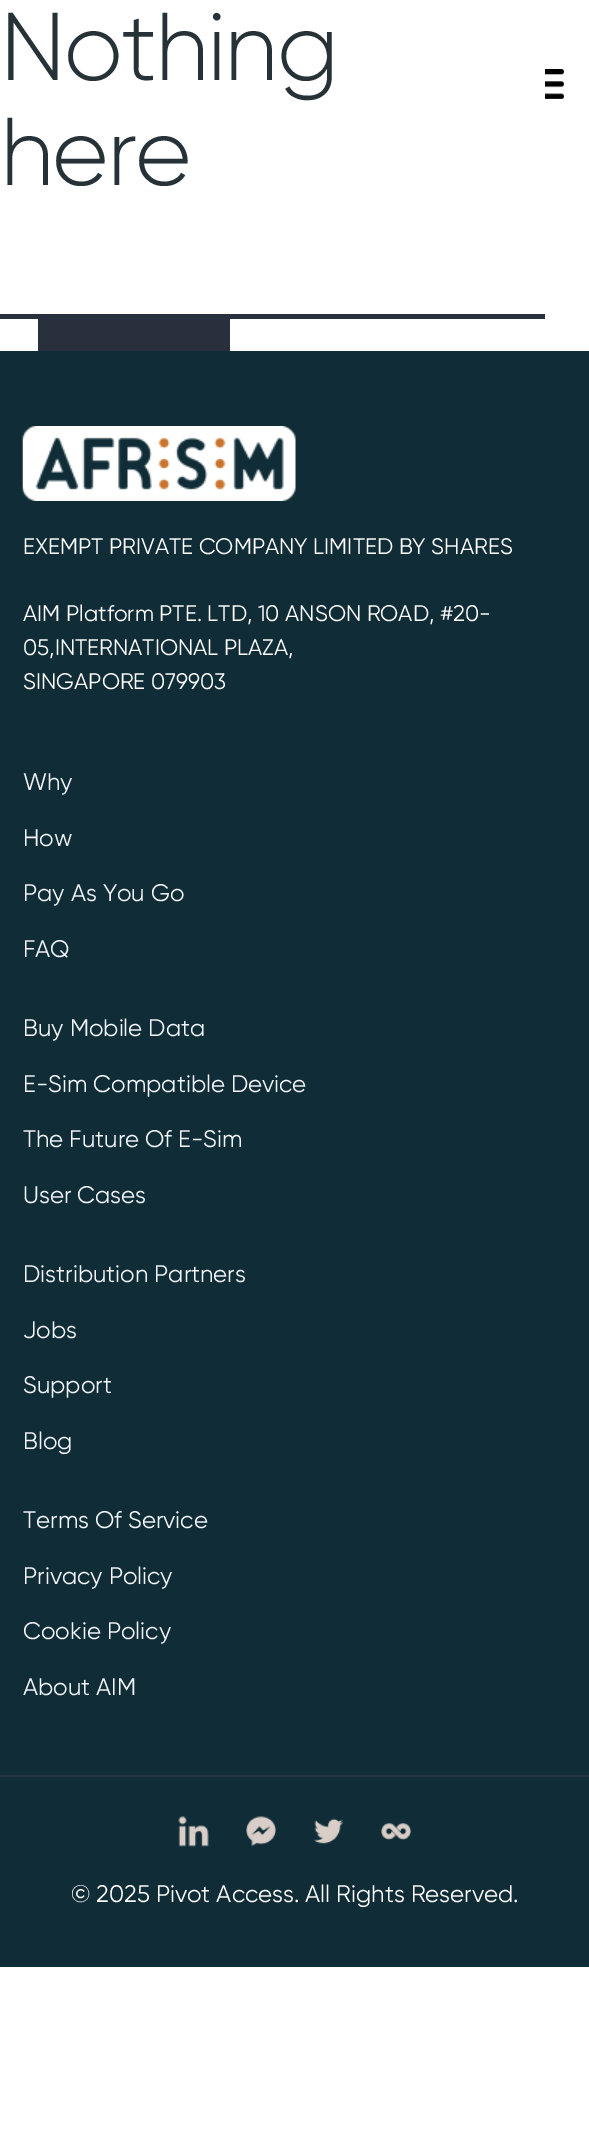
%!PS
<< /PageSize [589 2136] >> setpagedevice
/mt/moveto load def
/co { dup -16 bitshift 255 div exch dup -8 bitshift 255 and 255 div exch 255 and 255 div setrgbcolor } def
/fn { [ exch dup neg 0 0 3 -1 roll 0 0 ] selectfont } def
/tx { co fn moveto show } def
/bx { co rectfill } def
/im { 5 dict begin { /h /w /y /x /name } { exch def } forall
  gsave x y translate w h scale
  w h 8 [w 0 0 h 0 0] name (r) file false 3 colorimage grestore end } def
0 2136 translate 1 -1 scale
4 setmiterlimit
0 0 589 2136 16#FFFFFF bx
0 314 545 5 16#28303D bx
(media/1.raw) 545 69 19 30 im
38 319 192 32 16#28303D bx
0 351 589 1424 16#102D37 bx
0 1775 589 2 16#213745 bx
(media/2.raw) 22 426 274 75 im
0 1777 589 190 16#102D37 bx
(media/3.raw) 178 1816 31 31 im
(media/4.raw) 246 1816 30 31 im
(media/5.raw) 313 1818 31 26 im
(media/6.raw) 381 1823 30 17 im
/Gilroy-Light 96 fn
16#263238 co
0 80 mt -2 0 (Nothing) ashow
0 185 mt -2 0 (here) ashow
(EXEMPT PRIVATE COMPANY LIMITED BY SHARES) 23 554 /Gilroy-Regular 22.5 16#FFFFFF tx
(AIM Platform PTE. LTD, 10 ANSON ROAD, #20-) 23 621 /Gilroy-Regular 22.5 16#FFFFFF tx
(05,INTERNATIONAL PLAZA,) 23 655 /Gilroy-Regular 22.5 16#FFFFFF tx
(SINGAPORE 079903) 23 689 /Gilroy-Regular 22.5 16#FFFFFF tx
(Why) 23 790 /Gilroy-Regular 24 16#F2F5F9 tx
(How) 23 846 /Gilroy-Regular 24 16#F2F5F9 tx
(Pay As You Go) 23 901 /Gilroy-Regular 24 16#F2F5F9 tx
(FAQ) 23 957 /Gilroy-Regular 24 16#F2F5F9 tx
(Buy Mobile Data) 23 1036 /Gilroy-Regular 24 16#F2F5F9 tx
(E-Sim Compatible Device) 23 1092 /Gilroy-Regular 24 16#F2F5F9 tx
(The Future Of E-Sim) 23 1147 /Gilroy-Regular 24 16#F2F5F9 tx
(User Cases) 23 1203 /Gilroy-Regular 24 16#F2F5F9 tx
(Distribution Partners) 23 1282 /Gilroy-Regular 24 16#F2F5F9 tx
(Jobs) 23 1338 /Gilroy-Regular 24 16#F2F5F9 tx
(Support) 23 1393 /Gilroy-Regular 24 16#F2F5F9 tx
(Blog) 23 1449 /Gilroy-Regular 24 16#F2F5F9 tx
(Terms Of Service) 23 1528 /Gilroy-Regular 24 16#F2F5F9 tx
(Privacy Policy) 23 1584 /Gilroy-Regular 24 16#F2F5F9 tx
(Cookie Policy) 23 1639 /Gilroy-Regular 24 16#F2F5F9 tx
(About AIM) 23 1695 /Gilroy-Regular 24 16#F2F5F9 tx
(© 2025 Pivot Access. All Rights Reserved.) 71 1902 /Gilroy-Regular 24 16#FFFFFF tx
showpage
